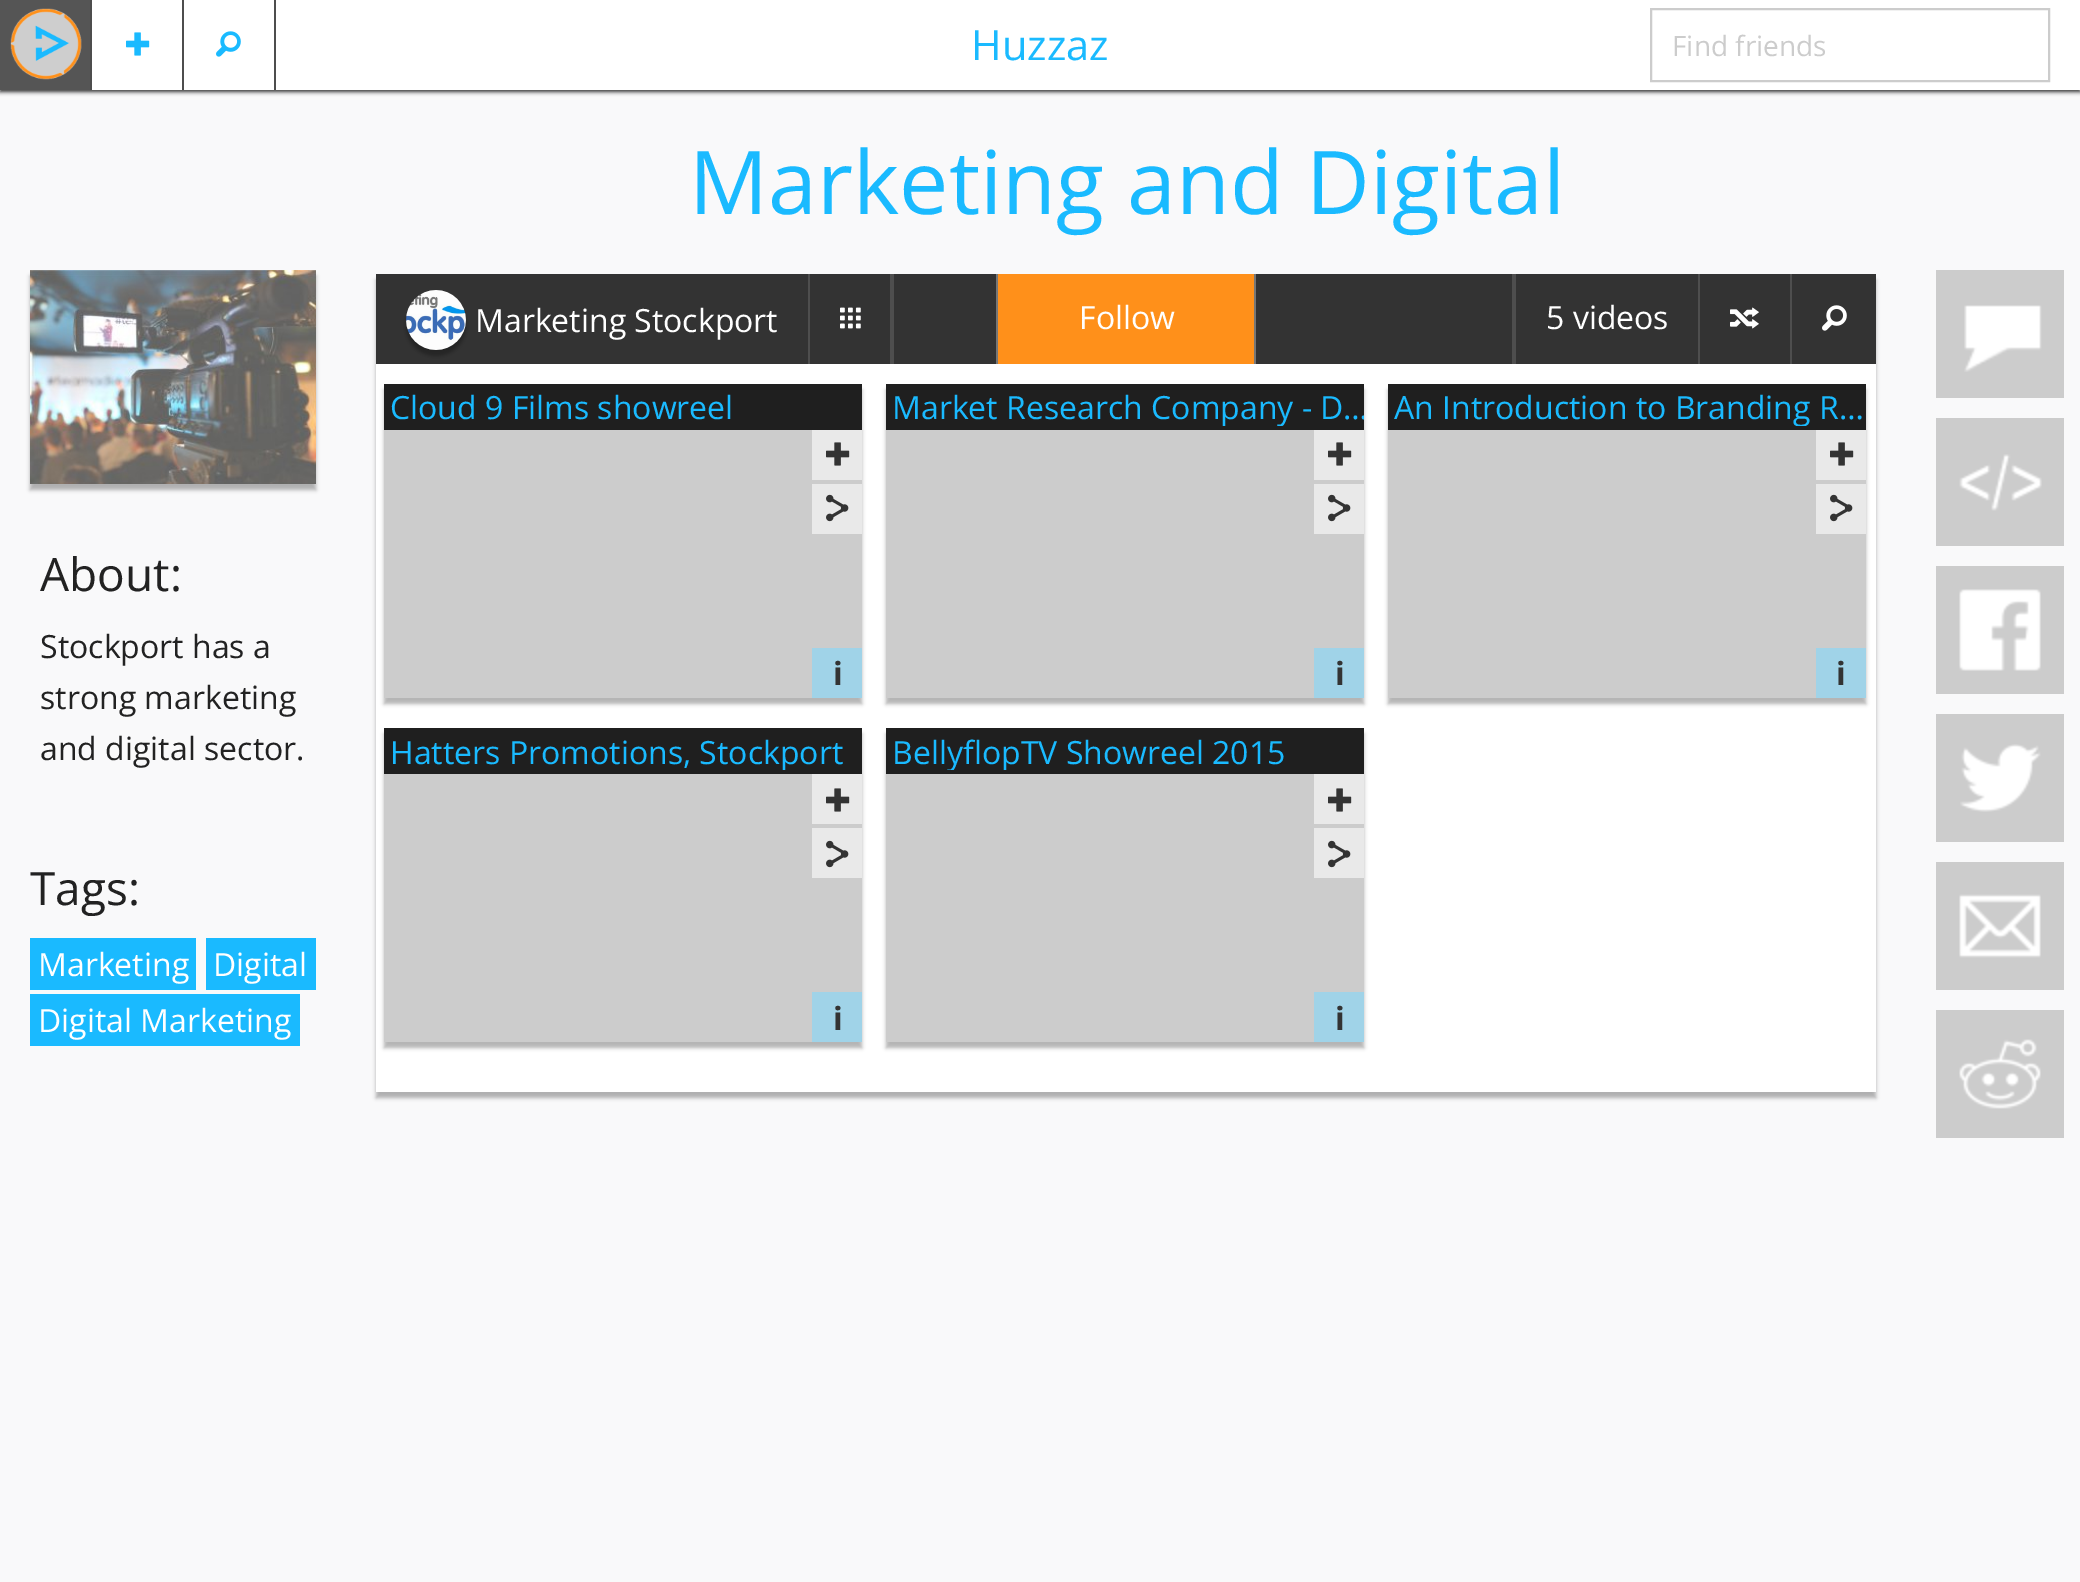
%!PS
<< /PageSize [2080 1582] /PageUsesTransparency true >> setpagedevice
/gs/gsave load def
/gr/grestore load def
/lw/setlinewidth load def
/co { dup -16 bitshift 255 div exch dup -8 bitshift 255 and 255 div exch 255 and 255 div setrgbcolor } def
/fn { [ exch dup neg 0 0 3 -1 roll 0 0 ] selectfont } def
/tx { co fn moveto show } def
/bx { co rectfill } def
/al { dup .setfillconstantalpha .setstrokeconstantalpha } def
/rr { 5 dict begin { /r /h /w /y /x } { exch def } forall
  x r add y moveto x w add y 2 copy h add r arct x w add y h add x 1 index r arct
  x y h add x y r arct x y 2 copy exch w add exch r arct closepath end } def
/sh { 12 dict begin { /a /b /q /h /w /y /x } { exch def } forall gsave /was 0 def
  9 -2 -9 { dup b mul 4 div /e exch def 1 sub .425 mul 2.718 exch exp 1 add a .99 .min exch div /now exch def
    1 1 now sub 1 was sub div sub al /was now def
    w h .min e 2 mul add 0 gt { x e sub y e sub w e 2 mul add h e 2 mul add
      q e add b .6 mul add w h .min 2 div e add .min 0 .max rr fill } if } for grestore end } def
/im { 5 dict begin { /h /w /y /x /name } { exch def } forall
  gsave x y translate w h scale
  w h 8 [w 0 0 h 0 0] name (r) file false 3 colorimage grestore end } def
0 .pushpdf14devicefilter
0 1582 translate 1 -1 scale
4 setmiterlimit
0 0 2080 1582 16#F9F9FA bx
16#333333 co
0 2 2080 90 0 2 1 sh
92 0 1988 90 16#FFFFFF bx
0 0 90 90 16#555555 bx
(media/1.raw) 10 8 72 72 im
90 0 2 90 16#4E4E4E bx
(media/2.raw) 126 32 24 24 im
182 0 2 90 16#4E4E4E bx
(media/3.raw) 216 31 25 26 im
274 0 2 90 16#4E4E4E bx
16#CCCCCC co
2 lw
1651 9 398 72 rectstroke
16#000000 co
30 276 286 214 0 2 .3 sh
(media/4.raw) 30 270 286 214 im
30 938 166 52 16#1ABAFF bx
206 938 110 52 16#1ABAFF bx
30 994 270 52 16#1ABAFF bx
16#000000 co
376 280 1500 818 0 2 .3 sh
376 364 1500 728 16#FFFFFF bx
376 274 1500 90 16#333333 bx
16#000000 co
406 296 60 60 30 2 .3 sh
(media/5.raw) 406 290 60 60 im
808 274 2 90 16#4E4E4E bx
(media/6.raw) 840 307 21 22 im
890 274 4 90 16#4E4E4E bx
1512 274 4 90 16#4E4E4E bx
1698 274 2 90 16#4E4E4E bx
(media/7.raw) 1730 307 29 22 im
1790 274 2 90 16#4E4E4E bx
(media/8.raw) 1822 305 25 26 im
1254 274 2 90 16#777777 bx
996 274 2 90 16#777777 bx
998 274 256 90 16#FF901A bx
16#000000 co
384 390 478 314 0 2 .3 sh
384 430 478 268 16#CCCCCC bx
384 384 478 46 16#1F1F1F bx
812 430 50 50 16#E9E9E9 bx
(media/9.raw) 826 442 24 24 im
812 484 50 50 16#E9E9E9 bx
(media/10.raw) 826 494 23 28 im
812 648 50 50 16#A0D3E8 bx
16#000000 co
886 390 478 314 0 2 .3 sh
886 430 478 268 16#CCCCCC bx
886 384 478 46 16#1F1F1F bx
1314 430 50 50 16#E9E9E9 bx
(media/9.raw) 1328 442 24 24 im
1314 484 50 50 16#E9E9E9 bx
(media/10.raw) 1328 494 23 28 im
1314 648 50 50 16#A0D3E8 bx
16#000000 co
1388 390 478 314 0 2 .3 sh
1388 430 478 268 16#CCCCCC bx
1388 384 478 46 16#1F1F1F bx
1816 430 50 50 16#E9E9E9 bx
(media/9.raw) 1830 442 24 24 im
1816 484 50 50 16#E9E9E9 bx
(media/10.raw) 1830 494 23 28 im
1816 648 50 50 16#A0D3E8 bx
16#000000 co
384 734 478 314 0 2 .3 sh
384 774 478 268 16#CCCCCC bx
384 728 478 46 16#1F1F1F bx
812 774 50 50 16#E9E9E9 bx
(media/9.raw) 826 788 24 24 im
812 828 50 50 16#E9E9E9 bx
(media/10.raw) 826 840 23 28 im
812 992 50 50 16#A0D3E8 bx
16#000000 co
886 734 478 314 0 2 .3 sh
886 774 478 268 16#CCCCCC bx
886 728 478 46 16#1F1F1F bx
1314 774 50 50 16#E9E9E9 bx
(media/9.raw) 1328 788 24 24 im
1314 828 50 50 16#E9E9E9 bx
(media/10.raw) 1328 840 23 28 im
1314 992 50 50 16#A0D3E8 bx
1936 270 128 128 16#CCCCCC bx
(media/11.raw) 1964 305 78 67 im
1936 418 128 128 16#CCCCCC bx
(media/12.raw) 1959 454 83 57 im
1936 566 128 128 16#CCCCCC bx
(media/13.raw) 1959 589 82 82 im
1936 714 128 128 16#CCCCCC bx
(media/14.raw) 1960 744 81 68 im
1936 862 128 128 16#CCCCCC bx
(media/15.raw) 1959 894 82 64 im
1936 1010 128 128 16#CCCCCC bx
(media/16.raw) 1959 1039 82 70 im
(Huzzaz) 971 60 /OpenSans-Regular 41.5 16#1ABAFF tx
(Find friends) 1672 56 /OpenSans-Regular 28 16#CCCCCC tx
(About:) 40 591 /OpenSans-Regular 46 16#222222 tx
(Stockport has a) 40 658 /OpenSans-Regular 32 16#222222 tx
(strong marketing) 40 709 /OpenSans-Regular 32 16#222222 tx
(and digital sector.) 40 760 /OpenSans-Regular 32 16#222222 tx
(Tags:) 30 905 /OpenSans-Regular 46 16#222222 tx
(Marketing) 38 976 /OpenSans-Regular 32 16#FFFFFF tx
(Digital) 213 976 /OpenSans-Regular 32 16#FFFFFF tx
(Digital Marketing) 38 1032 /OpenSans-Regular 32 16#FFFFFF tx
(Marketing and Digital) 689 214 /OpenSans-Regular 88 16#1ABAFF tx
(Marketing Stockport) 475 332 /OpenSans-Regular 32 16#FFFFFF tx
(5 videos) 1546 329 /OpenSans-Regular 32 16#FFFFFF tx
(Follow) 1079 329 /OpenSans-Regular 32 16#FFFFFF tx
(Cloud 9 Films showreel) 390 419 /OpenSans-Regular 32 16#1ABAFF tx
(i) 833 685 /OpenSans-Bold 32 16#333333 tx
gs
892 390 472 36 rectclip
(Market Research Company - D…) 892 419 /OpenSans-Regular 32 16#1ABAFF tx
gr
(i) 1335 685 /OpenSans-Bold 32 16#333333 tx
gs
1394 390 472 36 rectclip
(An Introduction to Branding R…) 1394 419 /OpenSans-Regular 32 16#1ABAFF tx
gr
(i) 1836 685 /OpenSans-Bold 32 16#333333 tx
gs
390 734 472 36 rectclip
(Hatters Promotions, Stockport) 390 764 /OpenSans-Regular 32 16#1ABAFF tx
gr
(i) 833 1030 /OpenSans-Bold 32 16#333333 tx
gs
892 734 472 36 rectclip
(BellyflopTV Showreel 2015) 892 764 /OpenSans-Regular 32 16#1ABAFF tx
gr
(i) 1335 1030 /OpenSans-Bold 32 16#333333 tx
.poppdf14devicefilter showpage
